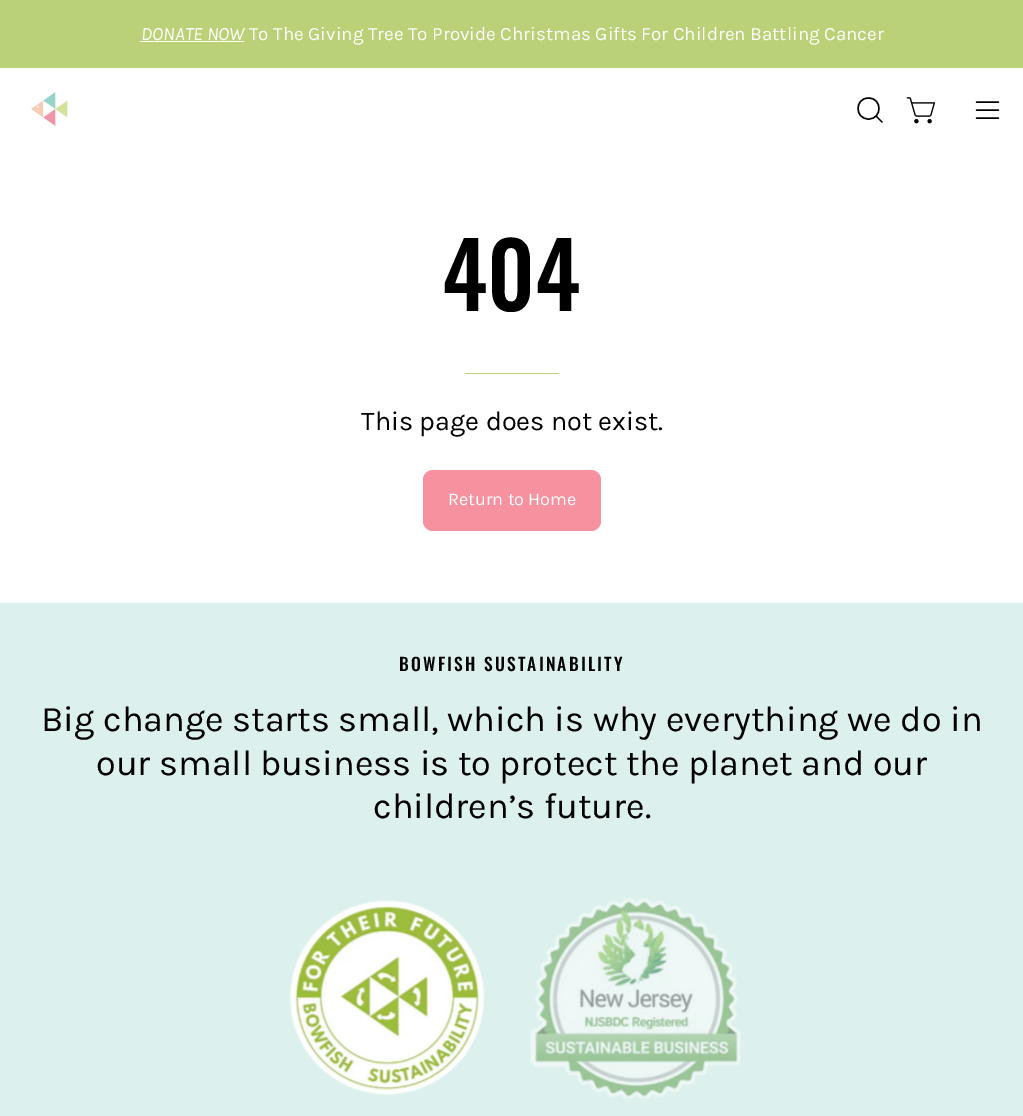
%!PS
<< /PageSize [1023 1116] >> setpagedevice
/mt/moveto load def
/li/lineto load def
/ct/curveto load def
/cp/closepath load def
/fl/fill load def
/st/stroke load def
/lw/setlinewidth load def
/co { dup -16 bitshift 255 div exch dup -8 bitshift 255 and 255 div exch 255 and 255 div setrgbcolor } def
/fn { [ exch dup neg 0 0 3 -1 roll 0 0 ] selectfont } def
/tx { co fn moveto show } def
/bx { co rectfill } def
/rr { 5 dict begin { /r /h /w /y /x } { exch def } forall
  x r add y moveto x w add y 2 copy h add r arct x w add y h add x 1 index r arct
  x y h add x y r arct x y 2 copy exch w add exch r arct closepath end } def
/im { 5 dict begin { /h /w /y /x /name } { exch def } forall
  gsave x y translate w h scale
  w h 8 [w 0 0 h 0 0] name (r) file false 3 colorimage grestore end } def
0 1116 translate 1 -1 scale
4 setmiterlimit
0 0 1023 1116 16#FFFFFF bx
0 0 1023 68 16#BBD177 bx
140 41 104 1 16#FFFFFF bx
(media/1.raw) 31 92 37 34 im
16#000000 co
1.4 lw
1 setlinecap
1 setlinejoin
868.5 119 mt 882.5 119 882.5 98 868.5 98 ct 854.5 98 854.5 119 868.5 119 ct cp 876 116 mt 882 122 li st
(media/2.raw) 906 97 30 27 im
976.5 110 mt 998.5 110 li 976.5 102 mt 998.5 102 li 976.5 118 mt 998.5 118 li st
465 373 94 1 16#BBD177 bx
16#F6919F co
423 470 178 61 10 rr fl
0 603 1023 513 16#DCF1ED bx
(media/3.raw) 289 900 196 195 im
(media/4.raw) 530 898 211 201 im
(DONATE NOW) 141 40 /Karla-Italic 18.9 16#FFFFFF tx
(To The Giving Tree To Provide Christmas Gifts For Children Battling Cancer) 249 40 /Karla-Regular 18.9 16#FFFFFF tx
(404) 442 311 /Oswald-Medium 90 16#000000 tx
(This page does not exist.) 361 430 /Karla-Regular 27 16#000000 tx
(Return to Home) 448 505 /Karla-Regular 18 16#FFFFFF tx
/Oswald-Medium 17.5 fn
16#000000 co
399 671 mt 2.2 0 (BOWFISH SUSTAINABILITY) ashow
(Big change starts small, which is why everything we do in) 41 731 /Karla-Regular 36 16#000000 tx
(our small business is to protect the planet and our) 96 775 /Karla-Regular 36 16#000000 tx
(children’s future.) 373 818 /Karla-Regular 36 16#000000 tx
showpage
